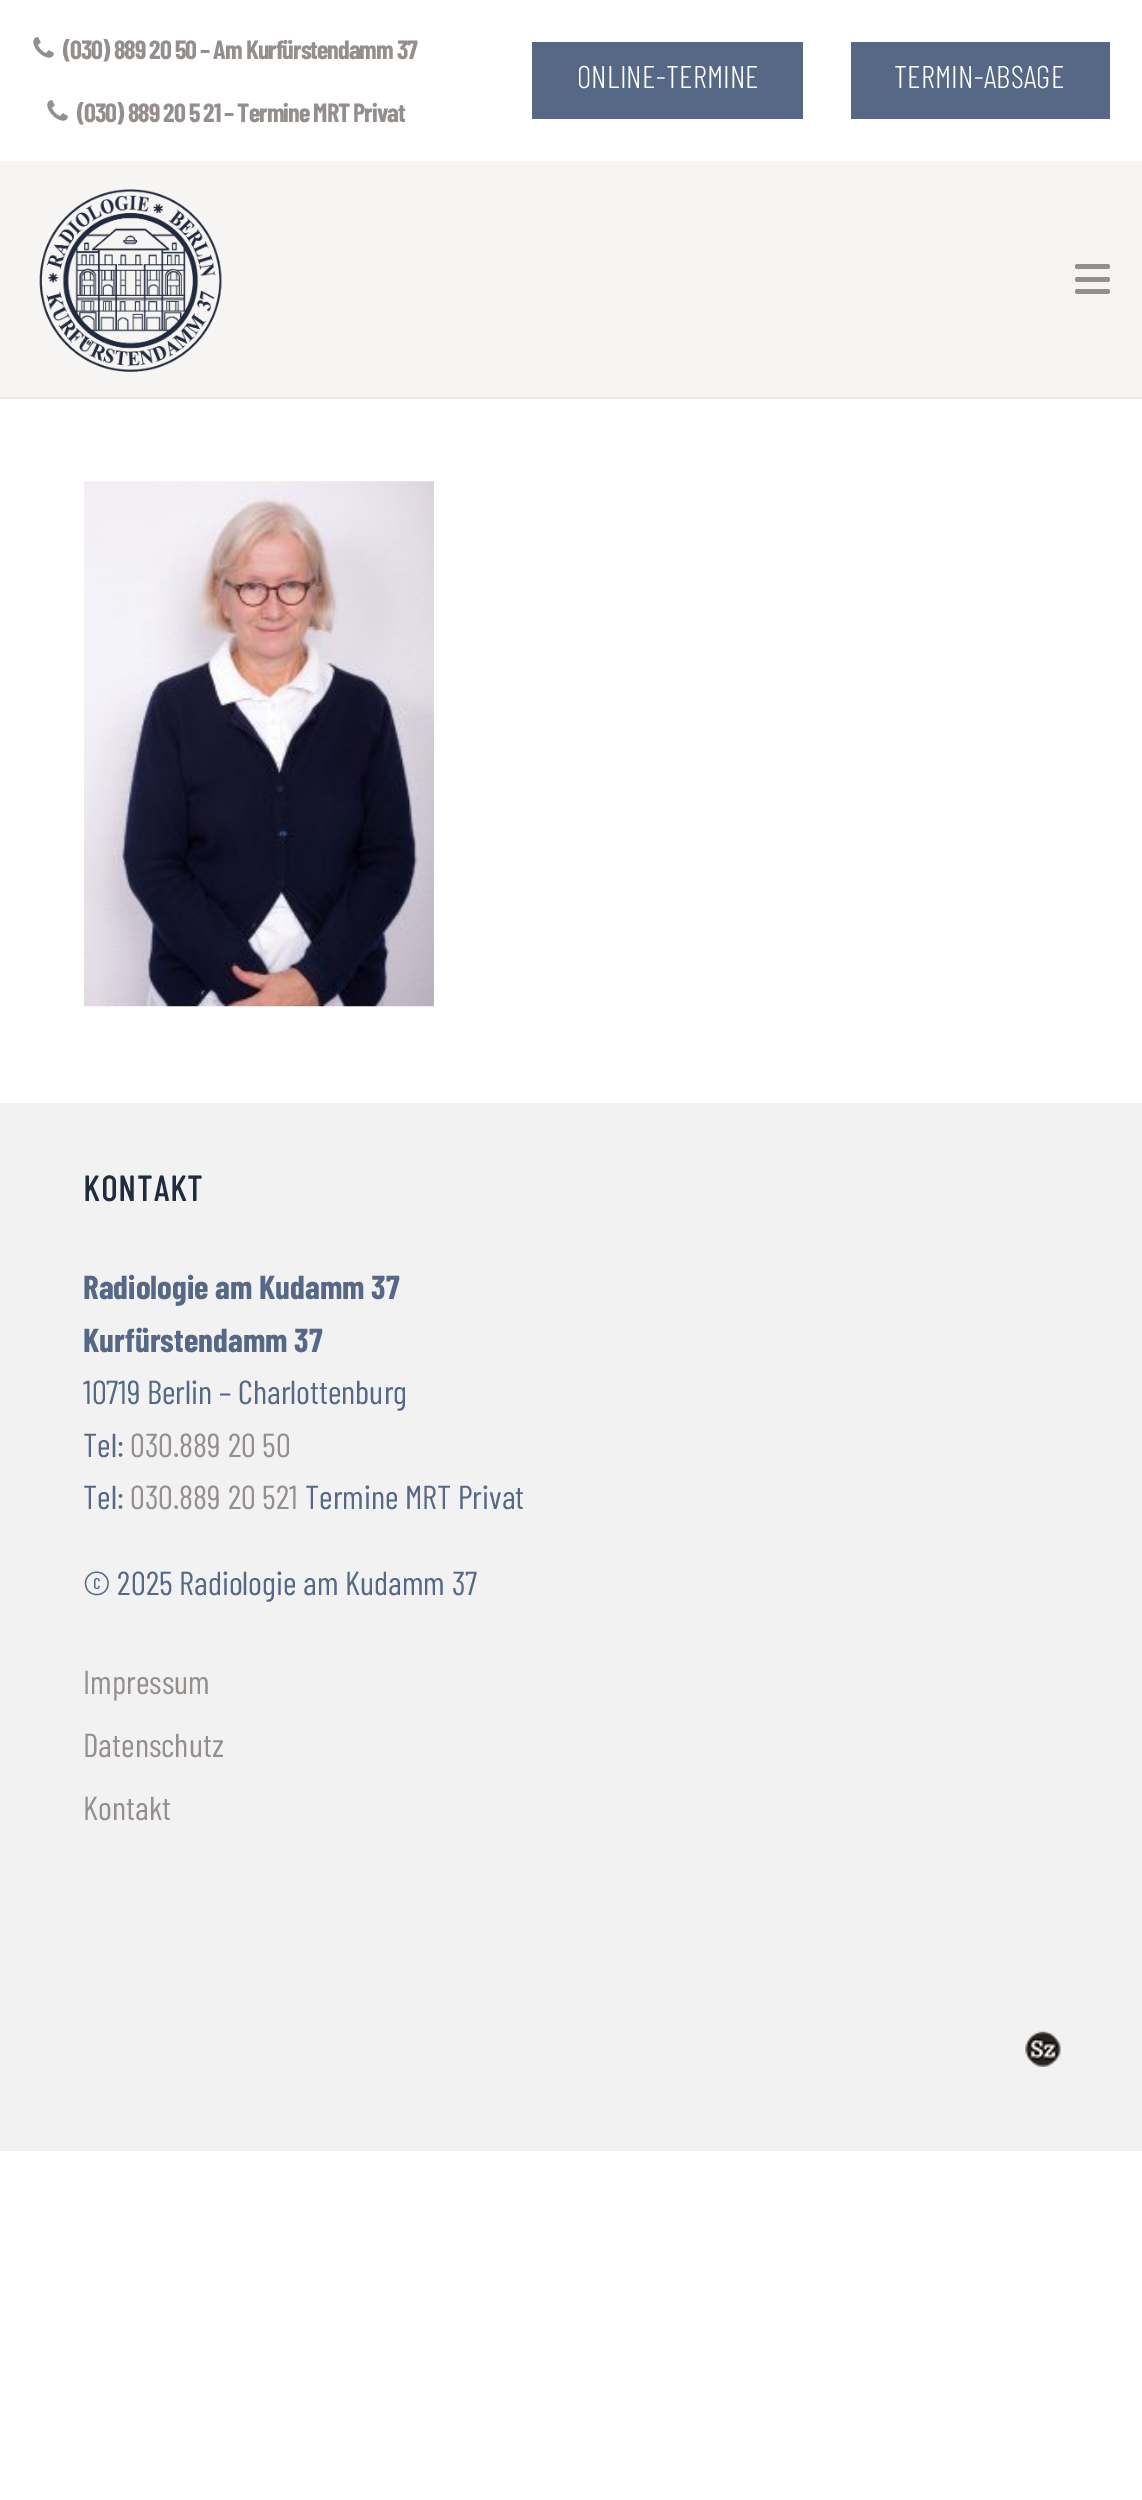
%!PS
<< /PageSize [1142 2500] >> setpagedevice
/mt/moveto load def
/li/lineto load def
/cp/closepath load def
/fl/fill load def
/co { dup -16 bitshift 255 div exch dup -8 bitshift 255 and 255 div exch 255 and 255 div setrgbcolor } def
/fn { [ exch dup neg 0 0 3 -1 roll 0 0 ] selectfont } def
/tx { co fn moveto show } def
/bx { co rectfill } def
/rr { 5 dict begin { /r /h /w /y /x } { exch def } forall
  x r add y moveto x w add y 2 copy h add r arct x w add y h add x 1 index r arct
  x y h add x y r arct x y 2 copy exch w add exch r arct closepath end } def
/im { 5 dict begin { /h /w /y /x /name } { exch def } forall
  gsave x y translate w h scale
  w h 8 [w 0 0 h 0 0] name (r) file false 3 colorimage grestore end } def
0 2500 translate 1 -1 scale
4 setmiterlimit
0 0 1142 2500 16#FFFFFF bx
(media/1.raw) 33 37 21 21 im
(media/2.raw) 47 100 21 21 im
532 42 271 77 16#566885 bx
851 42 259 77 16#566885 bx
16#EBEBEB co
0 397 mt 0 399 li 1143 399 li 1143 163 li 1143 397 li cp fl
0 161 1142 236 16#F6F5F3 bx
(media/3.raw) 39 189 183 183 im
16#948E8C co
1075 277 35 5 2.5 rr fl
1075 264 35 5 2.5 rr fl
1075 289 35 5 2.5 rr fl
(media/4.raw) 84 481 350 526 im
0 1103 1142 1048 16#F2F2F2 bx
(media/5.raw) 1025 2031 36 36 im
/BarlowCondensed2-Bold 26.25 fn
16#948E8C co
63 59 mt -1.05 0 (\(030\) 889 20 50 – Am Kurfürstendamm 37) ashow
77 122 mt -1.05 0 (\(030\) 889 20 5 21 – Termine MRT Privat) ashow
/BarlowCondensed-Light 31.5 fn
16#FFFFFF co
577 88 mt .25 0 (ONLINE-TERMINE) ashow
894 88 mt .25 0 (TERMIN-ABSAGE) ashow
/BarlowCondensed-Bold 35 fn
16#222A3F co
83 1201 mt 1.75 0 (KONTAKT) ashow
(Radiologie am Kudamm 37) 83 1299 /BarlowCondensed2-Bold 33.25 16#566885 tx
(Kurfürstendamm 37) 83 1352 /BarlowCondensed2-Bold 33.25 16#566885 tx
(10719 Berlin – Charlottenburg) 83 1404 /BarlowCondensed-Regular 33.25 16#566885 tx
(Tel:) 83 1457 /BarlowCondensed-Regular 33.25 16#566885 tx
(030.889 20 50) 130 1457 /BarlowCondensed-Regular 33.25 16#948E8C tx
(Tel:) 83 1509 /BarlowCondensed-Regular 33.25 16#566885 tx
(030.889 20 521) 130 1509 /BarlowCondensed-Regular 33.25 16#948E8C tx
(Termine MRT Privat) 305 1509 /BarlowCondensed-Regular 33.25 16#566885 tx
(© 2025 Radiologie am Kudamm 37) 83 1595 /BarlowCondensed-Regular 33.25 16#566885 tx
(Impressum) 83 1694 /BarlowCondensed-Regular 33.25 16#948E8C tx
(Datenschutz) 83 1757 /BarlowCondensed-Regular 33.25 16#948E8C tx
(Kontakt) 83 1820 /BarlowCondensed-Regular 33.25 16#948E8C tx
showpage
